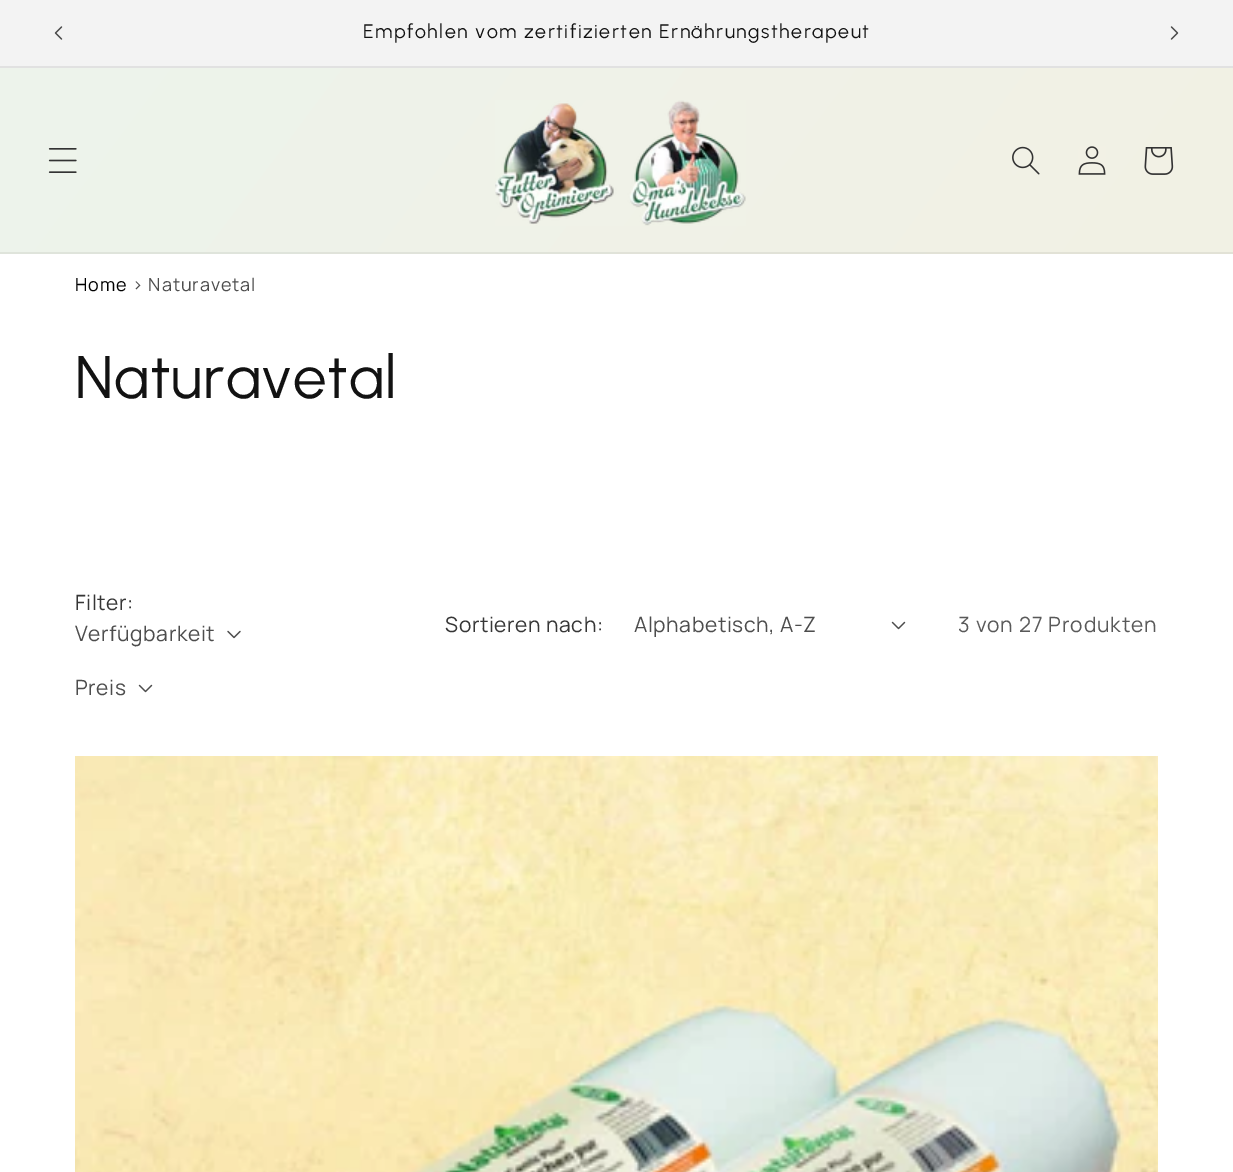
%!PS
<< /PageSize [1233 1172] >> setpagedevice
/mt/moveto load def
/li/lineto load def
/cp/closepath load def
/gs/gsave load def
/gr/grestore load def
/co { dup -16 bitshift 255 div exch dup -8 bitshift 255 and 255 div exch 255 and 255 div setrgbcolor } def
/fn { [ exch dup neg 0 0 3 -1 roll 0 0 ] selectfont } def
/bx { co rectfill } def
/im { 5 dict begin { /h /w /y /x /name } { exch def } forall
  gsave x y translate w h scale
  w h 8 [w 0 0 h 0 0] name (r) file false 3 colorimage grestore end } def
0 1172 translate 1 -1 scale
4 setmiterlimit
0 0 1233 1172 16#FFFFFF bx
0 0 1233 66 16#F3F3F3 bx
0 66 1233 2 16#E1E1E1 bx
(media/1.raw) 54 26 9 14 im
(media/2.raw) 1170 26 9 14 im
gs 0 68 mt 1233 68 li 1233 252 li 0 252 li cp clip newpath
<< /ShadingType 2 /ColorSpace /DeviceRGB /Coords [-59 78 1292 1095] /Extend [true true] /Function << /FunctionType 2 /Domain [0 1] /C0 [.929 .957 .925] /C1 [.961 .937 .878] /N 1 >> >> shfill gr
gs 0 252 mt 1233 252 li 1233 254 li 0 254 li cp clip newpath
<< /ShadingType 2 /ColorSpace /DeviceRGB /Coords [-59 78 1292 1095] /Extend [true true] /Function << /FunctionType 2 /Domain [0 1] /C0 [.871 .898 .867] /C1 [.898 .878 .824] /N 1 >> >> shfill gr
(media/3.raw) 48 148 29 25 im
(media/4.raw) 495 100 251 126 im
(media/5.raw) 1012 146 28 29 im
(media/6.raw) 1078 146 28 29 im
(media/7.raw) 1144 147 30 28 im
(media/8.raw) 227 630 14 9 im
(media/9.raw) 138 684 15 9 im
(media/9.raw) 891 621 15 9 im
(media/10.raw) 75 756 1083 416 im
/Urbanist-Regular 19.5 fn
16#121212 co
363 38 mt 1.5 0 (Empfohlen vom zertifizierten Ernährungstherapeut) ashow
/Manrope-Regular 18 fn
16#000000 co
75 291 mt .9 0 (Home) ashow
16#4D4D4D co
132 291 mt .9 0 (> Naturavetal) ashow
/Urbanist-Regular 60 fn
16#121212 co
75 398 mt .9 0 (Naturavetal) ashow
/Manrope-Regular 21 fn
16#363636 co
75 610 mt .6 0 (Filter:) ashow
16#4D4D4D co
75 641 mt .6 0 (Verfügbarkeit) ashow
75 695 mt .6 0 (Preis) ashow
16#363636 co
445 632 mt .6 0 (Sortieren nach:) ashow
16#4D4D4D co
634 632 mt .6 0 (Alphabetisch, A-Z) ashow
16#595959 co
958 632 mt .9 0 (3 von 27 Produkten) ashow
showpage
